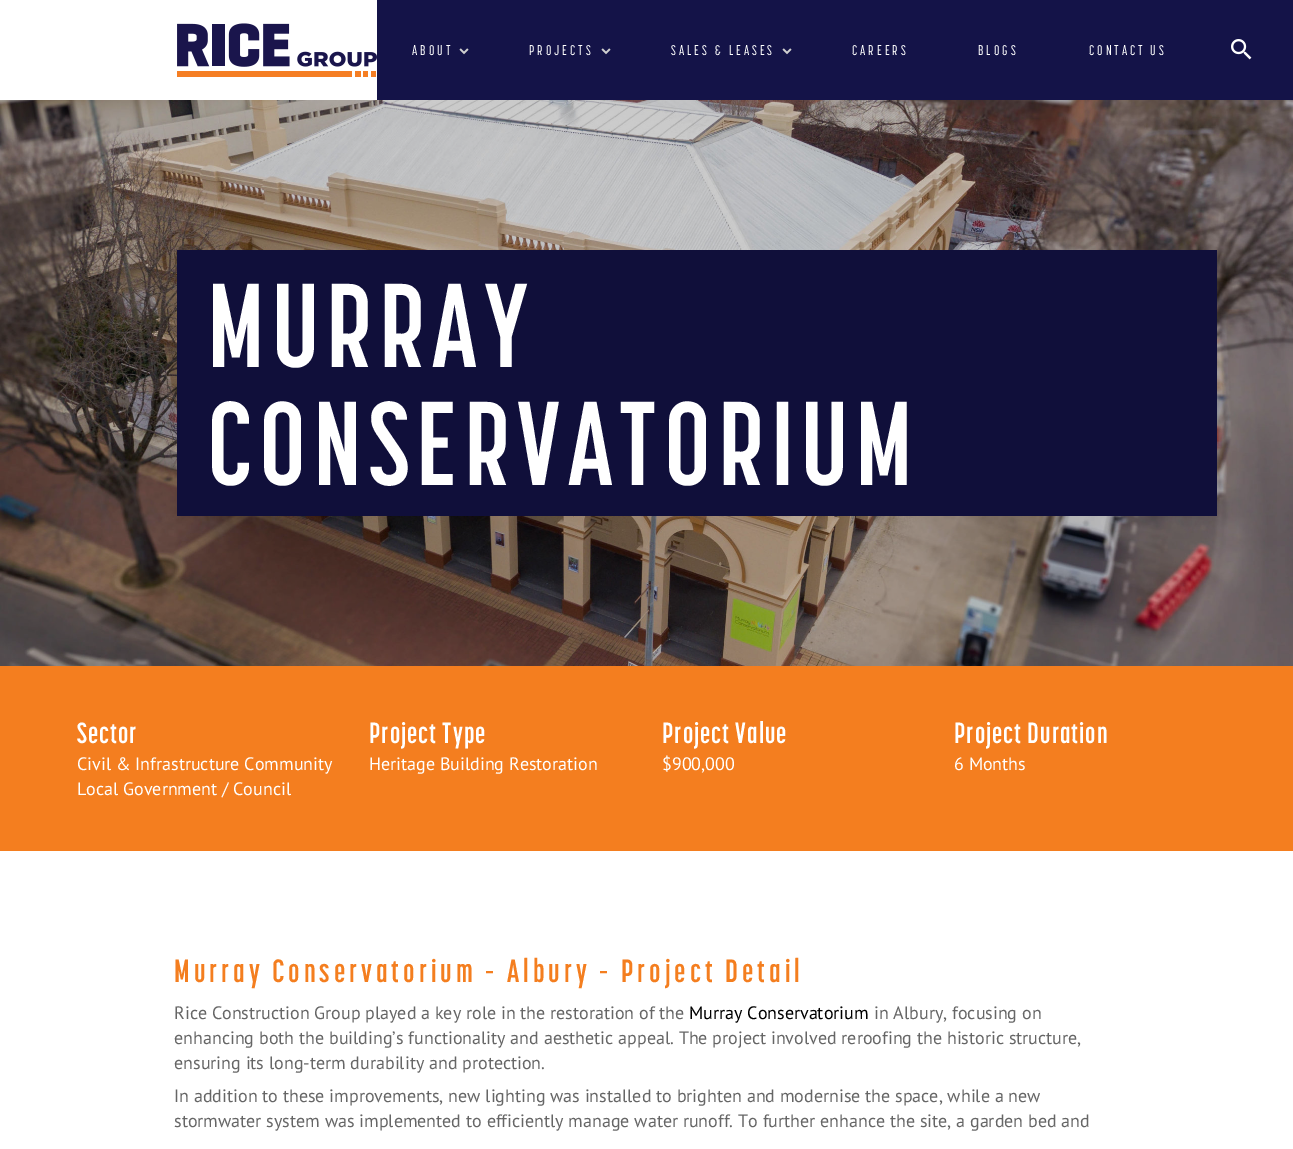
%!PS
<< /PageSize [1293 1149] >> setpagedevice
/mt/moveto load def
/co { dup -16 bitshift 255 div exch dup -8 bitshift 255 and 255 div exch 255 and 255 div setrgbcolor } def
/fn { [ exch dup neg 0 0 3 -1 roll 0 0 ] selectfont } def
/tx { co fn moveto show } def
/bx { co rectfill } def
/im { 5 dict begin { /h /w /y /x /name } { exch def } forall
  gsave x y translate w h scale
  w h 8 [w 0 0 h 0 0] name (r) file false 3 colorimage grestore end } def
0 1149 translate 1 -1 scale
4 setmiterlimit
0 0 1293 1149 16#FFFFFF bx
(media/1.raw) 177 23 200 54 im
377 0 916 100 16#141348 bx
(media/2.raw) 459 48 10 7 im
(media/2.raw) 601 48 10 7 im
(media/2.raw) 782 48 10 7 im
(media/3.raw) 1231 39 21 21 im
(media/4.raw) 0 100 1293 566 im
177 250 1040 266 16#100F3A bx
0 666 1293 185 16#F47E1F bx
/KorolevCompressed-Medium 14 fn
16#FFFFFF co
412 55 mt 3 0 (ABOUT) ashow
529 55 mt 3 0 (PROJECTS) ashow
671 55 mt 3 0 (SALES & LEASES) ashow
852 55 mt 3 0 (CAREERS) ashow
978 55 mt 3 0 (BLOGS) ashow
1089 55 mt 3 0 (CONTACT US) ashow
/KorolevCompressed-Bold 118 fn
207 367 mt 7 0 (MURRAY) ashow
207 485 mt 7 0 (CONSERVATORIUM) ashow
/KorolevCompressed-Bold 29 fn
77 743 mt 1 0 (Sector) ashow
(Civil & Infrastructure Community) 77 770 /PTSans-Regular 18 16#FFFFFF tx
(Local Government / Council) 77 795 /PTSans-Regular 18 16#FFFFFF tx
/KorolevCompressed-Bold 29 fn
369 743 mt 1 0 (Project Type) ashow
(Heritage Building Restoration) 369 770 /PTSans-Regular 18 16#FFFFFF tx
/KorolevCompressed-Bold 29 fn
662 743 mt 1 0 (Project Value) ashow
($900,000) 662 770 /PTSans-Regular 18 16#FFFFFF tx
/KorolevCompressed-Bold 29 fn
954 743 mt 1 0 (Project Duration) ashow
(6 Months) 954 770 /PTSans-Regular 18 16#FFFFFF tx
/KorolevCompressed-Bold 32 fn
16#F47E1F co
174 982 mt 4 0 (Murray Conservatorium – Albury – Project Detail) ashow
(Rice Construction Group played a key role in the restoration of the) 174 1019 /PTSans-Regular 18 16#666666 tx
(Murray Conservatorium) 689 1019 /PTSans-Regular 18 16#000000 tx
(in Albury, focusing on) 874 1019 /PTSans-Regular 18 16#666666 tx
(enhancing both the building’s functionality and aesthetic appeal. The project involved reroofing the historic structure,) 174 1044 /PTSans-Regular 18 16#666666 tx
(ensuring its long-term durability and protection.) 174 1069 /PTSans-Regular 18 16#666666 tx
(In addition to these improvements, new lighting was installed to brighten and modernise the space, while a new) 174 1102 /PTSans-Regular 18 16#666666 tx
(stormwater system was implemented to efficiently manage water runoff. To further enhance the site, a garden bed and) 174 1127 /PTSans-Regular 18 16#666666 tx
showpage
